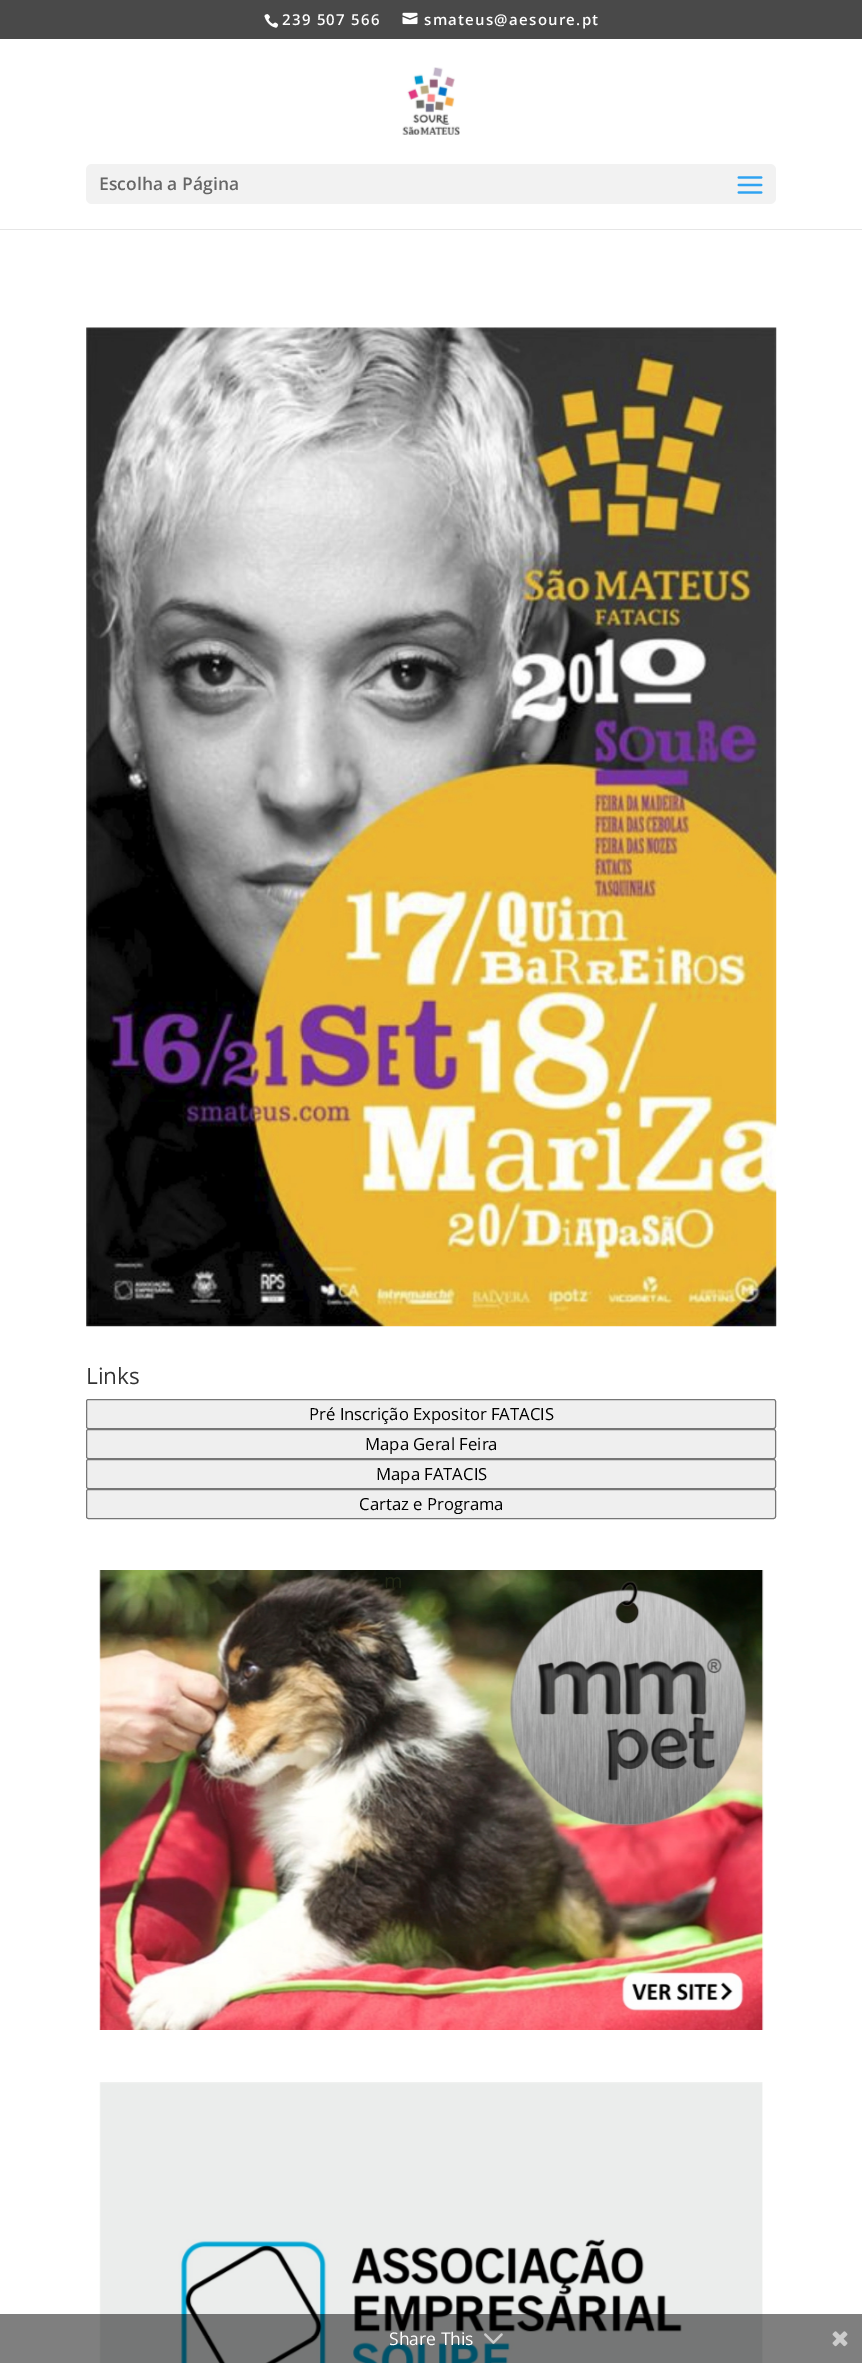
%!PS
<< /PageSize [862 2363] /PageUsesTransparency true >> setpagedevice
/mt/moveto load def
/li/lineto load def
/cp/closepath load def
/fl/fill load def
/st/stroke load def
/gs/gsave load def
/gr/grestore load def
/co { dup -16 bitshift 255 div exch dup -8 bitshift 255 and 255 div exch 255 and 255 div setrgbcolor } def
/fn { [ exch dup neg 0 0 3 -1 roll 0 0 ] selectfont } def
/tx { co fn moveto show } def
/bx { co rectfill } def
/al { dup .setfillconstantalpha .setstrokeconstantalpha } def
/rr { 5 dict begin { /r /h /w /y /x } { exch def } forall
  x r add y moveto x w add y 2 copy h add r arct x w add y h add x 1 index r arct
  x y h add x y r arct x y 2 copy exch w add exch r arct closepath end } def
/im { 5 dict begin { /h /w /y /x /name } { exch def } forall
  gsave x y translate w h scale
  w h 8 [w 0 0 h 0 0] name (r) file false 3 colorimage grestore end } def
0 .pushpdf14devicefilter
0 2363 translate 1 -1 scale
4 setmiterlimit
0 0 862 2363 16#FFFFFF bx
0 0 862 39 16#494949 bx
(media/1.raw) 264 14 15 14 im
(media/2.raw) 402 12 16 13 im
16#E6E6E6 co
0 229 mt 0 230 li 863 230 li 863 40 li 862 40 li 862 229 li cp fl
(media/3.raw) 402 67 58 68 im
16#F2F2F2 co
86 164 690 40 6 rr fl
(media/4.raw) 737 176 26 18 im
(media/5.raw) 86 327 691 1000 im
16#EFEFEF co
86.5 1399.5 689 29 2 rr gs fl gr
16#767676 co
st
16#EFEFEF co
86.5 1429.5 689 29 2 rr gs fl gr
16#767676 co
st
16#EFEFEF co
86.5 1459.5 689 29 2 rr gs fl gr
16#767676 co
st
16#EFEFEF co
86.5 1489.5 689 29 2 rr gs fl gr
16#767676 co
st
(media/6.raw) 99 1570 665 460 im
(media/7.raw) 99 2082 664 281 im
0.5 al
0 2314 862 49 16#000000 bx
1 al
(media/8.raw) 484 2333 19 11 im
(media/9.raw) 832 2331 16 16 im
/OpenSans-SemiBold 15 fn
16#FFFFFF co
282 25 mt 1.25 0 (239 507 566) ashow
424 25 mt 1.25 0 (smateus@aesoure.pt) ashow
(Escolha a Página) 99 190 /OpenSans-SemiBold 17.5 16#666666 tx
(Links) 86 1384 /OpenSans-Regular 22.5 16#333333 tx
(Pré Inscrição Expositor FATACIS) 309 1420 /OpenSans-Regular 16.7 16#000000 tx
(Mapa Geral Feira) 365 1450 /OpenSans-Regular 16.7 16#000000 tx
(Mapa FATACIS) 376 1480 /OpenSans-Regular 16.7 16#000000 tx
(Cartaz e Programa) 359 1510 /OpenSans-Regular 16.7 16#000000 tx
(m) 384 1588 /OpenSans-Regular 20 16#212715 tx
(Share This) 389 2345 /OpenSans-Regular 17.5 16#FFFFFF tx
.poppdf14devicefilter showpage
